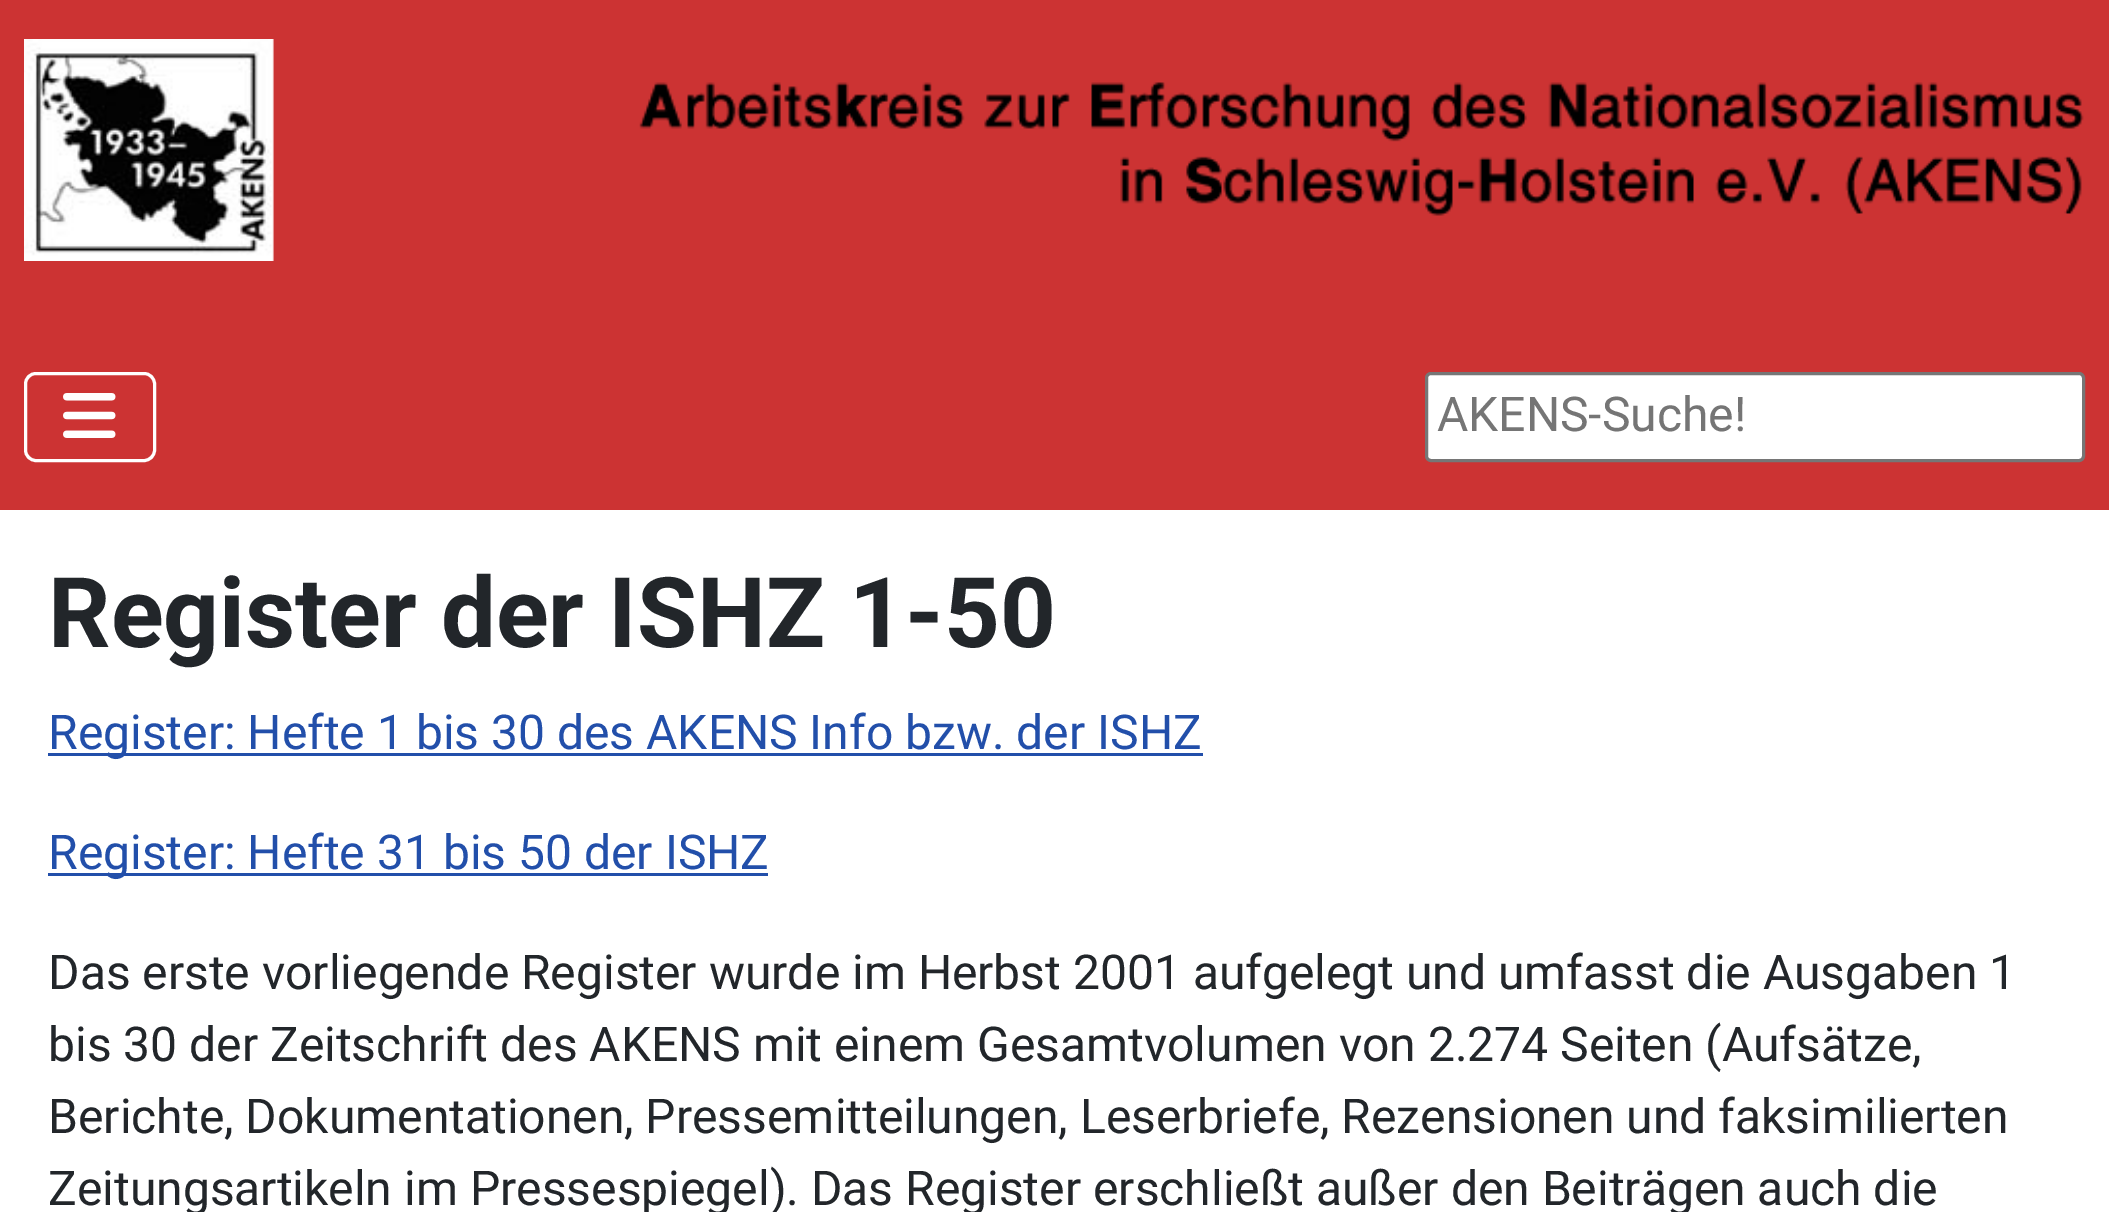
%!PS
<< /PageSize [2109 1212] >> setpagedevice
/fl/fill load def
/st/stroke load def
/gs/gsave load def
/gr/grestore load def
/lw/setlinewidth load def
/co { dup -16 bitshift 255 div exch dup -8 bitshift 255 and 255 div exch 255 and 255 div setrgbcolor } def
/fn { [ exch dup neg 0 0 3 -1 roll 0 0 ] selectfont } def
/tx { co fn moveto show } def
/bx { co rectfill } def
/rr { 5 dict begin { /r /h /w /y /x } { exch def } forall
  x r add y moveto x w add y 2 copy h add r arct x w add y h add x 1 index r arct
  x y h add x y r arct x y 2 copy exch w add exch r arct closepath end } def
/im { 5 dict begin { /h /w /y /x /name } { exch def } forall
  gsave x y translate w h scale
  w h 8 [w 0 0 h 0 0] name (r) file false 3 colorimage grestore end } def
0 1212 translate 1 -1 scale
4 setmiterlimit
0 0 2109 1212 16#FFFFFF bx
0 0 2109 510 16#CC3333 bx
(media/1.raw) 24 39 2060 222 im
16#FFFFFF co
3 lw
25.5 373.5 129 87 10.5 rr st
(media/2.raw) 63 393 53 45 im
1426.5 373.5 657 87 4.5 rr gs fl gr
16#767676 co
st
48 753 1155 3 16#224FAA bx
48 873 720 3 16#224FAA bx
(AKENS-Suche!) 1437 431 /Roboto-Regular 48 16#757575 tx
(Register der ISHZ 1-50) 48 647 /Roboto-Bold 97.6 16#22262A tx
(Register: Hefte 1 bis 30 des AKENS Info bzw. der ISHZ) 48 749 /Roboto-Regular 48 16#224FAA tx
(Register: Hefte 31 bis 50 der ISHZ) 48 869 /Roboto-Regular 48 16#224FAA tx
(Das erste vorliegende Register wurde im Herbst 2001 aufgelegt und umfasst die Ausgaben 1) 48 989 /Roboto-Regular 48 16#22262A tx
(bis 30 der Zeitschrift des AKENS mit einem Gesamtvolumen von 2.274 Seiten \(Aufsätze,) 48 1061 /Roboto-Regular 48 16#22262A tx
(Berichte, Dokumentationen, Pressemitteilungen, Leserbriefe, Rezensionen und faksimilierten) 48 1133 /Roboto-Regular 48 16#22262A tx
(Zeitungsartikeln im Pressespiegel\). Das Register erschließt außer den Beiträgen auch die) 48 1205 /Roboto-Regular 48 16#22262A tx
showpage
